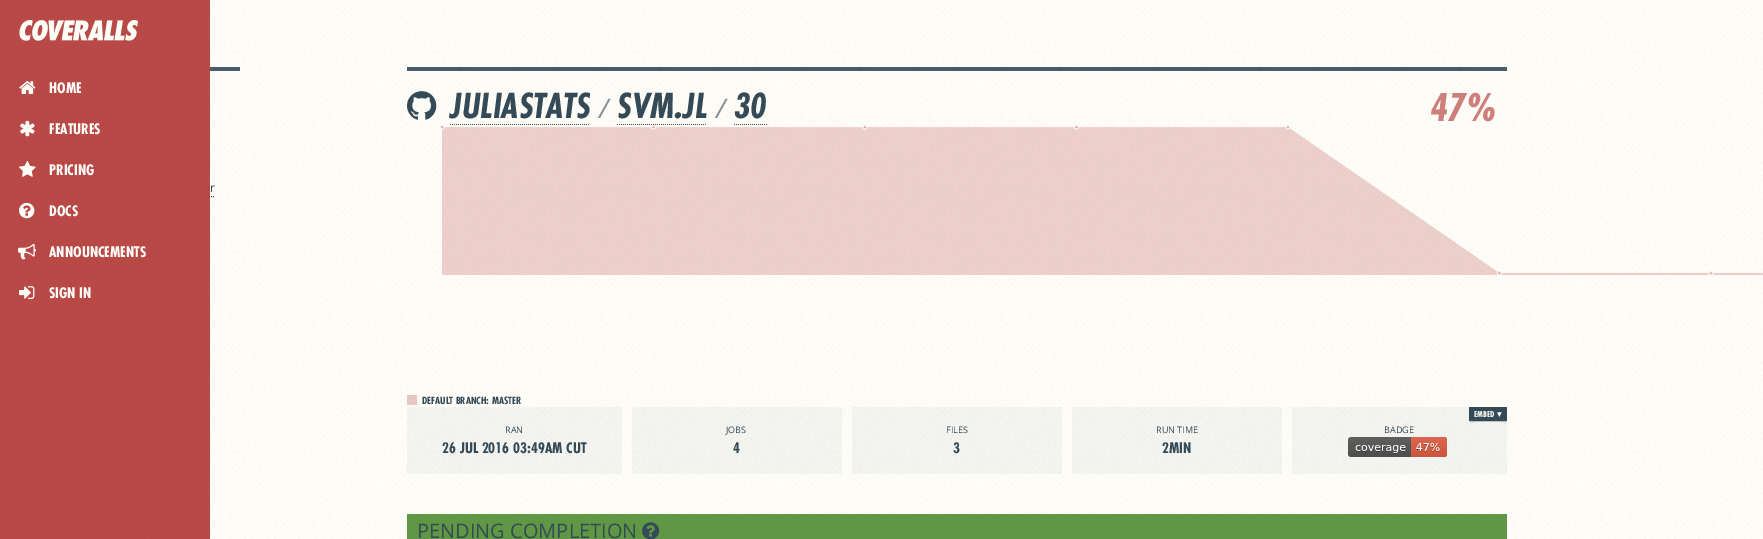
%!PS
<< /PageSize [1763 539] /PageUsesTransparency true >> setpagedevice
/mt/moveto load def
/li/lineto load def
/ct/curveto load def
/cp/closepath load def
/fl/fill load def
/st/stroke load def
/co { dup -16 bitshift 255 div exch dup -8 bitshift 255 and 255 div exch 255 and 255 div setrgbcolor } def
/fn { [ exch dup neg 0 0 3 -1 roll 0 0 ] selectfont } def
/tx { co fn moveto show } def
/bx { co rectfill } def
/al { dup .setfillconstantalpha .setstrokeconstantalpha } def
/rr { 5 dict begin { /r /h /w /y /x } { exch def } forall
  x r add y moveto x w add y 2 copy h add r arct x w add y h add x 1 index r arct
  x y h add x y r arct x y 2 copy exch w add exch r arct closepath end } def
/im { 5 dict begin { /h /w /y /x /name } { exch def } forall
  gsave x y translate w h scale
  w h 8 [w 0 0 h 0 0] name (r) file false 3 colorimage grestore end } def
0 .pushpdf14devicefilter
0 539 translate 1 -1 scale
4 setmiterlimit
0 0 1763 539 16#FEFDF8 bx
(media/1.raw) 210 0 1553 539 im
16#354A57 co
[1 1] 0 setdash
95 196.5 mt 215 196.5 li st
0 0 210 539 16#B94947 bx
(media/2.raw) 0 0 210 539 im
0 18 210 29 16#B94947 bx
(media/3.raw) 19 20 119 21 im
(media/4.raw) 19 81 17 13 im
(media/5.raw) 20 120 15 17 im
(media/6.raw) 19 160 17 17 im
(media/7.raw) 19 202 16 17 im
(media/8.raw) 18 243 18 17 im
(media/9.raw) 19 286 16 13 im
0.9 al
210 67 30 4 16#354A57 bx
407 67 1100 4 16#354A57 bx
1 al
(media/10.raw) 407 91 30 29 im
450 124.5 mt 590 124.5 li st
617 124.5 mt 707 124.5 li st
734 124.5 mt 767 124.5 li st
(media/11.raw) 440 125 1323 150 im
0.3 al
407 395 10 10 16#B94947 bx
0.05 al
1292 407 215 67 16#354A57 bx
0.2 al
16#000000 co
1469 420 mt 1469 423.5 1472.5 422 1476 422 ct 1500 422 li 1503.5 422 1507 423.5 1507 420 ct 1507 420.5 1506.5 421 1506 421 ct 1470 421 li 1469.5 421 1469 420.5 1469 420 ct cp fl
1 al
16#354A57 co
1469 407 38 14 1 rr fl
(media/12.raw) 1348 437 99 20 im
0.05 al
407 407 215 67 16#354A57 bx
632 407 210 67 16#354A57 bx
852 407 210 67 16#354A57 bx
1072 407 210 67 16#354A57 bx
1 al
407 514 1100 25 16#5F9744 bx
(media/13.raw) 642 522 18 17 im
(HOME) 49 93 /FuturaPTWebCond-Bold 16 16#FFFDFA tx
(FEATURES) 49 134 /FuturaPTWebCond-Bold 16 16#FFFDFA tx
(PRICING) 49 175 /FuturaPTWebCond-Bold 16 16#FFFDFA tx
(DOCS) 49 216 /FuturaPTWebCond-Bold 16 16#FFFDFA tx
(ANNOUNCEMENTS) 49 257 /FuturaPTWebCond-Bold 16 16#FFFDFA tx
(SIGN IN) 49 298 /FuturaPTWebCond-Bold 16 16#FFFDFA tx
(r) 210 192 /OpenSans-Regular 12 16#354A57 tx
(JULIASTATS) 450 118 /FuturaPTWebCond-BoldItalic 38 16#354A57 tx
(/) 599 118 /OpenSans-Italic 27 16#859197 tx
(SVM.JL) 617 118 /FuturaPTWebCond-BoldItalic 38 16#354A57 tx
(/) 716 118 /OpenSans-Italic 27 16#859197 tx
(30) 734 118 /FuturaPTWebCond-BoldItalic 38 16#354A57 tx
(47%) 1430 121 /FuturaPTWebCond-BoldItalic 42 16#CD7F7C tx
(DEFAULT BRANCH: MASTER) 422 404 /FuturaPTWebCond-Bold 11 16#354A57 tx
(EMBED) 1474 417 /FuturaPTWebCond-Bold 9 16#FFFDFA tx
(▾) 1497 417 /DejaVuSans-Bold 9 16#FFFDFA tx
(BADGE) 1384 433 /OpenSans-Regular 9 16#354A57 tx
(RAN) 505 433 /OpenSans-Regular 9 16#354A57 tx
(26 JUL 2016 03:49AM CUT) 442 453 /FuturaPTWebCond-Bold 16 16#354A57 tx
(JOBS) 726 433 /OpenSans-Regular 9 16#354A57 tx
(4) 733 453 /FuturaPTWebCond-Bold 16 16#354A57 tx
(FILES) 946 433 /OpenSans-Regular 9 16#354A57 tx
(3) 953 453 /FuturaPTWebCond-Bold 16 16#354A57 tx
(RUN TIME) 1156 433 /OpenSans-Regular 9 16#354A57 tx
(2MIN) 1162 453 /FuturaPTWebCond-Bold 16 16#354A57 tx
(PENDING COMPLETION) 417 538 /OpenSans-Regular 20 16#354A57 tx
.poppdf14devicefilter showpage
